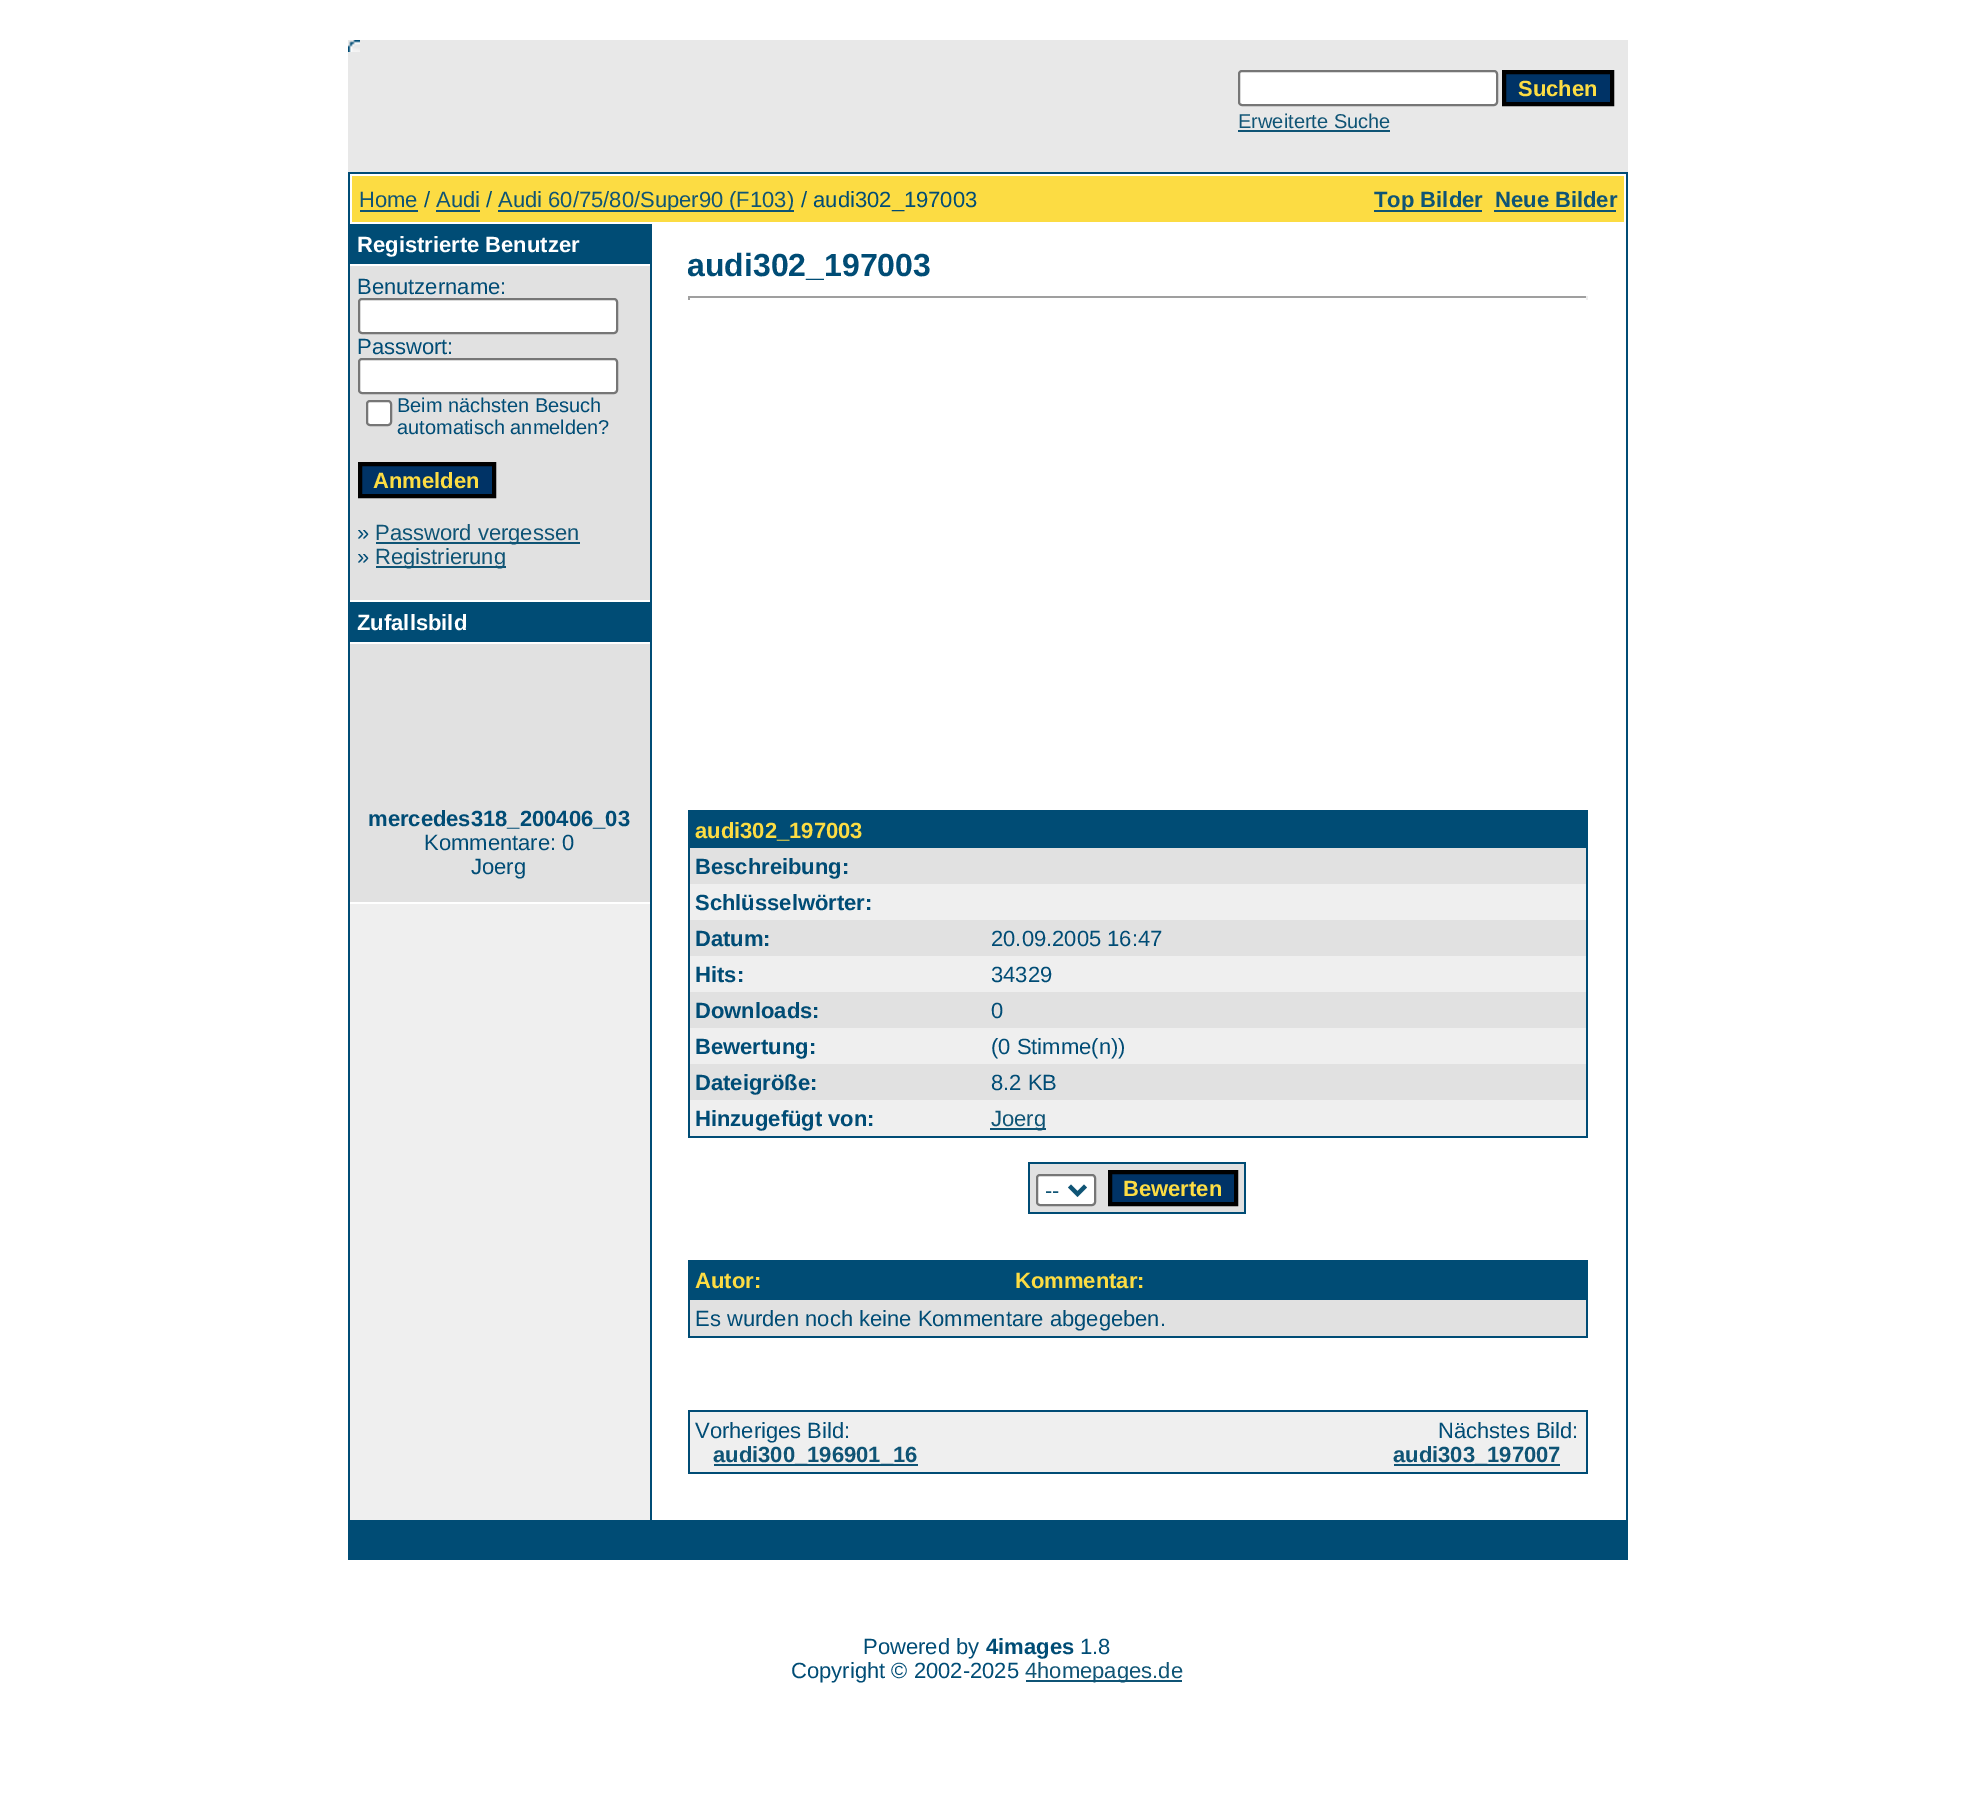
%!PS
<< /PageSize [1973 1795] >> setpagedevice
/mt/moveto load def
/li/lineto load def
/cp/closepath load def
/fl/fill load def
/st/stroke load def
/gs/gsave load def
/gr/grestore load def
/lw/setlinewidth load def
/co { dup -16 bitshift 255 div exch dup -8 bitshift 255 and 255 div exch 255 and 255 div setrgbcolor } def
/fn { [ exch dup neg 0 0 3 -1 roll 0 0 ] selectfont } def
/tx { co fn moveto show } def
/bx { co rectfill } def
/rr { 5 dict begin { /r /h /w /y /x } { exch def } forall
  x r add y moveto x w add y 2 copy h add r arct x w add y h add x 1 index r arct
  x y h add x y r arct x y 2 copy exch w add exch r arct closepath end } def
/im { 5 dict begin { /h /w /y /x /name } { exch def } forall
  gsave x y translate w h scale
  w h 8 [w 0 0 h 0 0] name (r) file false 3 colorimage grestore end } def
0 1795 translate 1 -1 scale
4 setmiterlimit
0 0 1973 1795 16#FFFFFF bx
348 40 1280 132 16#E8E8E8 bx
(media/1.raw) 348 40 12 12 im
16#FFFFFF co
1239 71 258 34 3 rr gs fl gr
16#767676 co
2 lw
st
16#003366 co
1504 72 mt 1612 72 li 1612 104 li 1504 104 li cp gs fl gr
16#000000 co
4 lw
st
1238 130 152 2 16#0F5475 bx
348 172 1280 1388 16#004C75 bx
350 174 1276 1346 16#FFFFFF bx
352 176 1272 46 16#FCDC43 bx
360 210 58 2 16#0F5475 bx
436 210 44 2 16#0F5475 bx
498 210 296 2 16#0F5475 bx
1374 210 108 2 16#0F5475 bx
1494 210 122 2 16#0F5475 bx
350 904 300 616 16#EFEFEF bx
350 224 300 40 16#004C75 bx
350 266 300 334 16#E1E1E1 bx
16#FFFFFF co
359 299 258 34 3 rr gs fl gr
16#767676 co
2 lw
st
16#FFFFFF co
359 359 258 34 3 rr gs fl gr
16#767676 co
st
16#FFFFFF co
367 401 24 24 3 rr gs fl gr
16#767676 co
st
16#003366 co
360 464 mt 494 464 li 494 496 li 360 496 li cp gs fl gr
16#000000 co
4 lw
st
376 542 204 2 16#0F5475 bx
376 566 130 2 16#0F5475 bx
350 602 300 40 16#004C75 bx
350 644 300 258 16#E1E1E1 bx
650 224 2 1296 16#004C75 bx
688 296 900 2 16#9F9F9F bx
1586 296 2 4 16#EEEEEE bx
688 296 2 4 16#9F9F9F bx
688 810 900 328 16#004C75 bx
690 848 896 36 16#E1E1E1 bx
690 884 896 36 16#EFEFEF bx
690 920 896 36 16#E1E1E1 bx
690 956 896 36 16#EFEFEF bx
690 992 896 36 16#E1E1E1 bx
690 1028 896 36 16#EFEFEF bx
690 1064 896 36 16#E1E1E1 bx
690 1100 896 36 16#EFEFEF bx
990 1128 56 2 16#0F5475 bx
1028 1162 218 52 16#004C75 bx
1030 1164 214 48 16#E1E1E1 bx
16#FFFFFF co
1037 1175 58 30 3 rr gs fl gr
16#767676 co
2 lw
st
16#0F5475 co
4 lw
1069.5 1186 mt 1077.5 1194 li 1085.5 1186 li st
16#003366 co
1110 1172 mt 1236 1172 li 1236 1204 li 1110 1204 li cp gs fl gr
16#000000 co
st
688 1260 900 78 16#004C75 bx
690 1300 896 36 16#E1E1E1 bx
688 1410 900 64 16#004C75 bx
690 1412 896 60 16#EFEFEF bx
714 1464 204 2 16#0F5475 bx
1394 1464 166 2 16#0F5475 bx
1026 1680 156 2 16#0F5475 bx
(Suchen) 1518 96 /LiberationSans-Bold 22 16#FCDC43 tx
(Erweiterte Suche) 1238 128 /LiberationSans-Regular 20 16#0F5475 tx
(Home) 359 207 /LiberationSans-Regular 22 16#0F5475 tx
(/) 424 207 /LiberationSans-Regular 22 16#004C75 tx
(Audi) 436 207 /LiberationSans-Regular 22 16#0F5475 tx
(/) 486 207 /LiberationSans-Regular 22 16#004C75 tx
(Audi 60/75/80/Super90 \(F103\)) 498 207 /LiberationSans-Regular 22 16#0F5475 tx
(/ audi302_197003) 801 207 /LiberationSans-Regular 22 16#004C75 tx
(Top Bilder) 1374 207 /LiberationSans-Bold 22 16#0F5475 tx
(Neue Bilder) 1495 207 /LiberationSans-Bold 22 16#0F5475 tx
(Registrierte Benutzer) 357 252 /LiberationSans-Bold 22 16#FFFFFF tx
(Benutzername:) 357 294 /LiberationSans-Regular 22 16#004C75 tx
(Passwort:) 357 354 /LiberationSans-Regular 22 16#004C75 tx
(Beim nächsten Besuch) 397 412 /LiberationSans-Regular 20 16#004C75 tx
(automatisch anmelden?) 397 434 /LiberationSans-Regular 20 16#004C75 tx
(Anmelden) 373 488 /LiberationSans-Bold 22 16#FCDC43 tx
(») 357 540 /LiberationSans-Regular 22 16#004C75 tx
(Password vergessen) 375 540 /LiberationSans-Regular 22 16#0F5475 tx
(») 357 564 /LiberationSans-Regular 22 16#004C75 tx
(Registrierung) 375 564 /LiberationSans-Regular 22 16#0F5475 tx
(Zufallsbild) 357 630 /LiberationSans-Bold 22 16#FFFFFF tx
(mercedes318_200406_03) 368 826 /LiberationSans-Bold 22 16#004C75 tx
(Kommentare: 0) 424 850 /LiberationSans-Regular 22 16#004C75 tx
(Joerg) 471 874 /LiberationSans-Regular 22 16#004C75 tx
(audi302_197003) 687 276 /LiberationSans-Bold 32 16#004C75 tx
(audi302_197003) 695 838 /LiberationSans-Bold 22 16#FCDC43 tx
(Beschreibung:) 695 874 /LiberationSans-Bold 22 16#004C75 tx
(Schlüsselwörter:) 695 910 /LiberationSans-Bold 22 16#004C75 tx
(Datum:) 695 946 /LiberationSans-Bold 22 16#004C75 tx
(20.09.2005 16:47) 991 946 /LiberationSans-Regular 22 16#004C75 tx
(Hits:) 695 982 /LiberationSans-Bold 22 16#004C75 tx
(34329) 991 982 /LiberationSans-Regular 22 16#004C75 tx
(Downloads:) 695 1018 /LiberationSans-Bold 22 16#004C75 tx
(0) 991 1018 /LiberationSans-Regular 22 16#004C75 tx
(Bewertung:) 695 1054 /LiberationSans-Bold 22 16#004C75 tx
(\(0 Stimme\(n\)\)) 991 1054 /LiberationSans-Regular 22 16#004C75 tx
(Dateigröße:) 695 1090 /LiberationSans-Bold 22 16#004C75 tx
(8.2 KB) 991 1090 /LiberationSans-Regular 22 16#004C75 tx
(Hinzugefügt von:) 695 1126 /LiberationSans-Bold 22 16#004C75 tx
(Joerg) 991 1126 /LiberationSans-Regular 22 16#0F5475 tx
(--) 1045 1198 /LiberationSans-Regular 22 16#0F5475 tx
(Bewerten) 1123 1196 /LiberationSans-Bold 22 16#FCDC43 tx
(Autor:) 695 1288 /LiberationSans-Bold 22 16#FCDC43 tx
(Kommentar:) 1015 1288 /LiberationSans-Bold 22 16#FCDC43 tx
(Es wurden noch keine Kommentare abgegeben.) 695 1326 /LiberationSans-Regular 22 16#004C75 tx
(Vorheriges Bild:) 695 1438 /LiberationSans-Regular 22 16#004C75 tx
(audi300_196901_16) 713 1462 /LiberationSans-Bold 22 16#0F5475 tx
(Nächstes Bild:) 1438 1438 /LiberationSans-Regular 22 16#004C75 tx
(audi303_197007) 1393 1462 /LiberationSans-Bold 22 16#0F5475 tx
(Powered by) 863 1654 /LiberationSans-Regular 22 16#004C75 tx
(4images) 986 1654 /LiberationSans-Bold 22 16#004C75 tx
(1.8) 1080 1654 /LiberationSans-Regular 22 16#004C75 tx
(Copyright © 2002-2025) 791 1678 /LiberationSans-Regular 22 16#004C75 tx
(4homepages.de) 1025 1678 /LiberationSans-Regular 22 16#0F5475 tx
showpage
